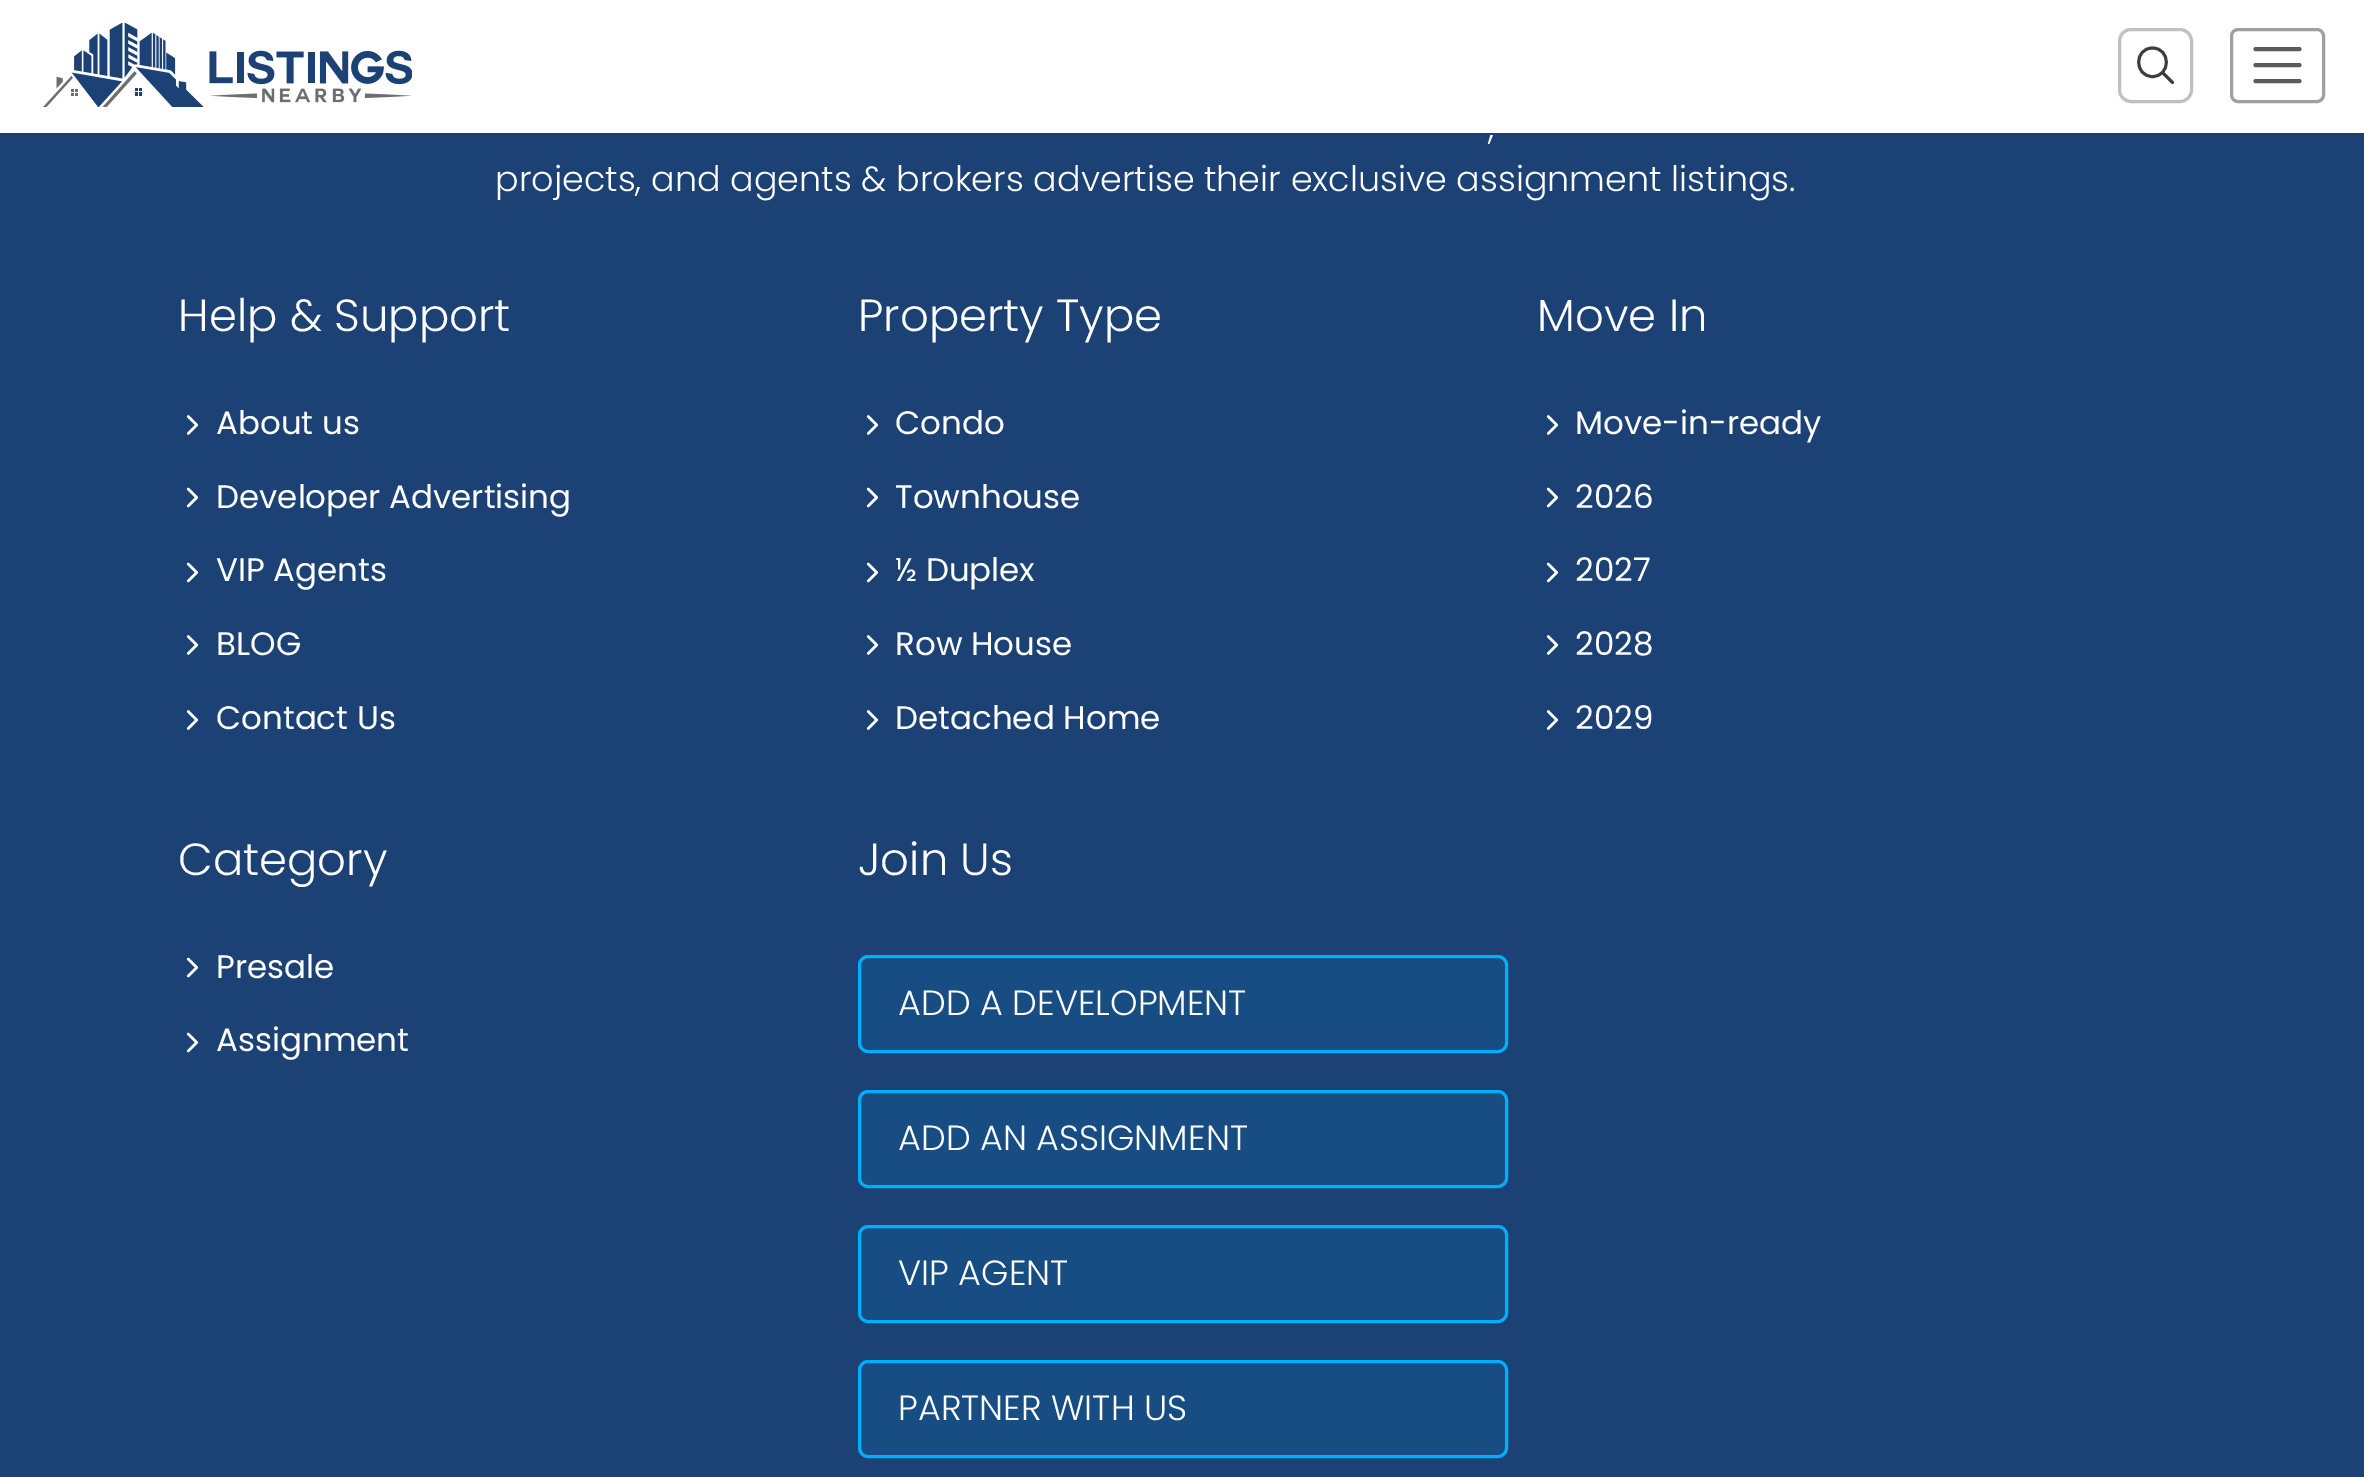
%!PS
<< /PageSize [2364 1477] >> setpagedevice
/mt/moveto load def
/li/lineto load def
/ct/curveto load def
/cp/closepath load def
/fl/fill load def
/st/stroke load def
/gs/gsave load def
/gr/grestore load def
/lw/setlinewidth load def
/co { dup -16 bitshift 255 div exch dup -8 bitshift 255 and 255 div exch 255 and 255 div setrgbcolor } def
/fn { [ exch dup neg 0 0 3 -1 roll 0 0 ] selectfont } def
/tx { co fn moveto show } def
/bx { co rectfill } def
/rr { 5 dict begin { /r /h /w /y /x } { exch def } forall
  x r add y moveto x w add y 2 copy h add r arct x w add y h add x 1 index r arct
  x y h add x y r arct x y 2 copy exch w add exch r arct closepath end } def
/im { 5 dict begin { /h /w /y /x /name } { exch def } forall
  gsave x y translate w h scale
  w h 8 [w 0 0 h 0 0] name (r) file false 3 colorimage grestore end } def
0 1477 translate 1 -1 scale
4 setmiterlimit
0 0 2364 1477 16#1B4175 bx
0 0 2364 133 16#FFFFFF bx
(media/1.raw) 43 23 369 84 im
16#C0C0C0 co
3 lw
2119.5 29.5 72 72 11.5 rr st
16#3D3D3D co
2.9 lw
2152.5 48 mt 2134 48 2134 76.5 2152.5 76.5 ct 2171 76.5 2171 48 2152.5 48 ct cp st
1 setlinecap
2163 73 mt 2172.5 82.5 li st
16#A0A0A0 co
3 lw
0 setlinecap
2231.5 29.5 92 72 6.5 rr st
16#595C5F co
4 lw
1 setlinecap
2255.5 49 mt 2299.5 49 li 2255.5 65 mt 2299.5 65 li 2255.5 81 mt 2299.5 81 li st
(media/2.raw) 186 415 13 20 im
(media/3.raw) 186 487 13 21 im
(media/3.raw) 186 562 13 21 im
(media/2.raw) 186 635 13 20 im
(media/2.raw) 186 710 13 20 im
(media/2.raw) 866 415 13 20 im
(media/3.raw) 866 487 13 21 im
(media/3.raw) 866 562 13 21 im
(media/2.raw) 866 635 13 20 im
(media/2.raw) 866 710 13 20 im
(media/2.raw) 1546 415 13 20 im
(media/3.raw) 1546 487 13 21 im
(media/3.raw) 1546 562 13 21 im
(media/2.raw) 1546 635 13 20 im
(media/2.raw) 1546 710 13 20 im
(media/3.raw) 186 957 13 21 im
(media/3.raw) 186 1032 13 21 im
16#184D84 co
859.5 956.5 647 95 8.5 rr gs fl gr
16#00AEFF co
3 lw
0 setlinecap
st
16#184D84 co
859.5 1091.5 647 95 8.5 rr gs fl gr
16#00AEFF co
st
16#184D84 co
859.5 1226.5 647 95 8.5 rr gs fl gr
16#00AEFF co
st
16#184D84 co
859.5 1361.5 647 95 8.5 rr gs fl gr
16#00AEFF co
st
(,) 1488 139 /Poppins-Light 35 16#FFFFFF tx
(projects, and agents & brokers advertise their exclusive assignment listings.) 495 191 /Poppins-Light 35 16#FFFFFF tx
(Help & Support) 178 331 /Poppins-Light 45 16#FFFFFF tx
(About us) 216 434 /Poppins-Regular 32.5 16#FFFFFF tx
(Developer Advertising) 216 508 /Poppins-Regular 32.5 16#FFFFFF tx
(VIP Agents) 216 581 /Poppins-Regular 32.5 16#FFFFFF tx
(BLOG) 216 655 /Poppins-Regular 32.5 16#FFFFFF tx
(Contact Us) 216 729 /Poppins-Regular 32.5 16#FFFFFF tx
(Property Type) 858 331 /Poppins-Light 45 16#FFFFFF tx
(Condo) 895 434 /Poppins-Regular 32.5 16#FFFFFF tx
(Townhouse) 895 508 /Poppins-Regular 32.5 16#FFFFFF tx
(½ Duplex) 895 581 /Poppins-Regular 32.5 16#FFFFFF tx
(Row House) 895 655 /Poppins-Regular 32.5 16#FFFFFF tx
(Detached Home) 895 729 /Poppins-Regular 32.5 16#FFFFFF tx
(Move In) 1537 331 /Poppins-Light 45 16#FFFFFF tx
(Move-in-ready) 1575 434 /Poppins-Regular 32.5 16#FFFFFF tx
(2026) 1575 508 /Poppins-Regular 32.5 16#FFFFFF tx
(2027) 1575 581 /Poppins-Regular 32.5 16#FFFFFF tx
(2028) 1575 655 /Poppins-Regular 32.5 16#FFFFFF tx
(2029) 1575 729 /Poppins-Regular 32.5 16#FFFFFF tx
(Category) 178 875 /Poppins-Light 45 16#FFFFFF tx
(Presale) 216 978 /Poppins-Regular 32.5 16#FFFFFF tx
(Assignment) 216 1051 /Poppins-Regular 32.5 16#FFFFFF tx
(Join Us) 858 875 /Poppins-Light 45 16#FFFFFF tx
(ADD A DEVELOPMENT) 898 1015 /Poppins-Light 35 16#FFFFFF tx
(ADD AN ASSIGNMENT) 898 1150 /Poppins-Light 35 16#FFFFFF tx
(VIP AGENT) 898 1285 /Poppins-Light 35 16#FFFFFF tx
(PARTNER WITH US) 898 1420 /Poppins-Light 35 16#FFFFFF tx
showpage
